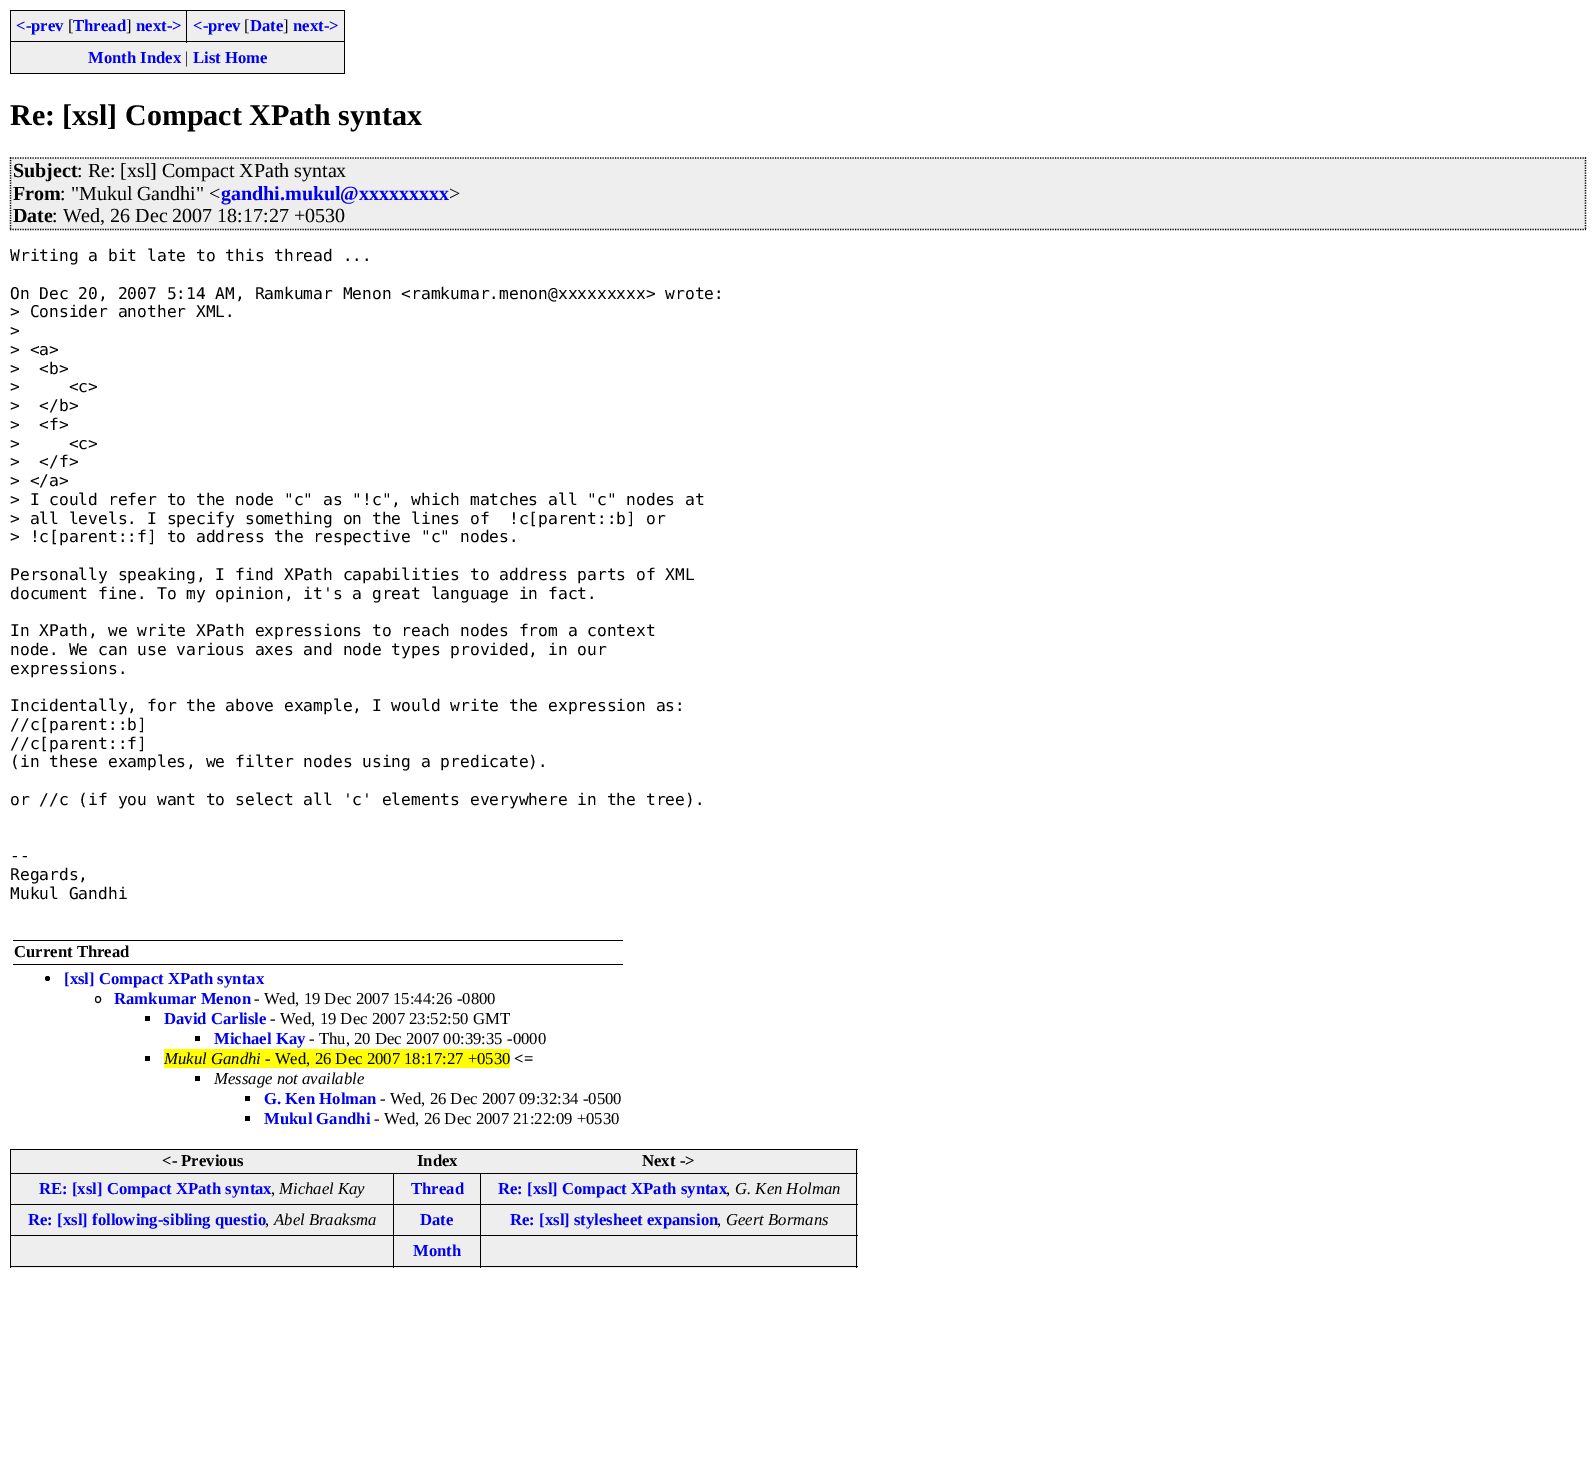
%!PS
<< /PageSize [1596 1471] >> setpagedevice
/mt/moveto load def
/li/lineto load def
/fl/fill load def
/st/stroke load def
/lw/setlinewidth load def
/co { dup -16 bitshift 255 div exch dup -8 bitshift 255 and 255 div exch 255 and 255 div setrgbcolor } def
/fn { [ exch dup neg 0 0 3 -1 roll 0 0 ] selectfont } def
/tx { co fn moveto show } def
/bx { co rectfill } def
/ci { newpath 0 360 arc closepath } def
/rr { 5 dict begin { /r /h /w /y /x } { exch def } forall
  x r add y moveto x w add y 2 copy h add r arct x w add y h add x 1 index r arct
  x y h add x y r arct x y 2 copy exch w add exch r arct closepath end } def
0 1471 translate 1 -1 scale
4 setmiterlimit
0 0 1596 1471 16#FFFFFF bx
11 11 333 62 16#EEEEEE bx
10 10 335 1 16#000000 bx
344 10 1 64 16#000000 bx
10 73 335 1 16#000000 bx
10 10 1 64 16#000000 bx
10 41 335 1 16#000000 bx
186 10 1 33 16#000000 bx
10 158 1576 72 16#EEEEEE bx
16#000000 co
1.2 lw
[1.25 1.25] 0 setdash
10 158 mt 1586 158 li st
1585.5 157.5 mt 1585.5 230 li st
10 229.5 mt 1586 229.5 li st
10.5 157.5 mt 10.5 230 li st
13 940 610 1 16#000000 bx
13 964 610 1 16#000000 bx
47.5 978.5 2.5 ci fl
1 lw
[] 0 setdash
95.5 996.5 5 6 2.5 rr st
145 1016 5 5 16#000000 bx
195 1036 5 5 16#000000 bx
145 1056 5 5 16#000000 bx
164 1049 346 19 16#FFFF00 bx
195 1076 5 5 16#000000 bx
245 1096 5 5 16#000000 bx
245 1116 5 5 16#000000 bx
11 1150 847 118 16#EEEEEE bx
10 1149 848 1 16#000000 bx
856 1149 1 119 16#000000 bx
10 1266 848 1 16#000000 bx
10 1149 1 119 16#000000 bx
10 1173 848 1 16#000000 bx
10 1204 848 1 16#000000 bx
10 1235 848 1 16#000000 bx
393 1235 1 33 16#000000 bx
393 1204 1 32 16#000000 bx
393 1173 1 32 16#000000 bx
480 1235 1 33 16#000000 bx
480 1204 1 32 16#000000 bx
480 1173 1 32 16#000000 bx
(<-prev) 16 31 /LiberationSerif-Bold 16.7 16#0000EE tx
([) 68 31 /LiberationSerif-Regular 16.7 16#000000 tx
(Thread) 73 31 /LiberationSerif-Bold 16.7 16#0000EE tx
(]) 126 31 /LiberationSerif-Regular 16.7 16#000000 tx
(next->) 136 31 /LiberationSerif-Bold 16.7 16#0000EE tx
(<-prev) 193 31 /LiberationSerif-Bold 16.7 16#0000EE tx
([) 244 31 /LiberationSerif-Regular 16.7 16#000000 tx
(Date) 250 31 /LiberationSerif-Bold 16.7 16#0000EE tx
(]) 283 31 /LiberationSerif-Regular 16.7 16#000000 tx
(next->) 293 31 /LiberationSerif-Bold 16.7 16#0000EE tx
(Month Index) 88 63 /LiberationSerif-Bold 16.7 16#0000EE tx
(|) 185 63 /LiberationSerif-Regular 16.7 16#000000 tx
(List Home) 193 63 /LiberationSerif-Bold 16.7 16#0000EE tx
(Re: [xsl] Compact XPath syntax) 10 125 /LiberationSerif-Bold 30 16#000000 tx
(Subject) 13 177 /LiberationSerif-Bold 20 16#000000 tx
(: Re: [xsl] Compact XPath syntax) 77 177 /LiberationSerif-Regular 20 16#000000 tx
(From) 13 200 /LiberationSerif-Bold 20 16#000000 tx
(: "Mukul Gandhi" <) 60 200 /LiberationSerif-Regular 20 16#000000 tx
(gandhi.mukul@xxxxxxxxx) 221 200 /LiberationSerif-Bold 20 16#0000EE tx
(>) 449 200 /LiberationSerif-Regular 20 16#000000 tx
(Date) 13 222 /LiberationSerif-Bold 20 16#000000 tx
(: Wed, 26 Dec 2007 18:17:27 +0530) 52 222 /LiberationSerif-Regular 20 16#000000 tx
(Writing a bit late to this thread ...) 10 261 /DejaVuSansMono-Regular 16.25 16#000000 tx
(On Dec 20, 2007 5:14 AM, Ramkumar Menon <ramkumar.menon@xxxxxxxxx> wrote:) 10 299 /DejaVuSansMono-Regular 16.25 16#000000 tx
(> Consider another XML.) 10 317 /DejaVuSansMono-Regular 16.25 16#000000 tx
(>) 10 336 /DejaVuSansMono-Regular 16.25 16#000000 tx
(> <a>) 10 355 /DejaVuSansMono-Regular 16.25 16#000000 tx
(>  <b>) 10 374 /DejaVuSansMono-Regular 16.25 16#000000 tx
(>     <c>) 10 392 /DejaVuSansMono-Regular 16.25 16#000000 tx
(>  </b>) 10 411 /DejaVuSansMono-Regular 16.25 16#000000 tx
(>  <f>) 10 430 /DejaVuSansMono-Regular 16.25 16#000000 tx
(>     <c>) 10 449 /DejaVuSansMono-Regular 16.25 16#000000 tx
(>  </f>) 10 467 /DejaVuSansMono-Regular 16.25 16#000000 tx
(> </a>) 10 486 /DejaVuSansMono-Regular 16.25 16#000000 tx
(> I could refer to the node "c" as "!c", which matches all "c" nodes at) 10 505 /DejaVuSansMono-Regular 16.25 16#000000 tx
(> all levels. I specify something on the lines of  !c[parent::b] or) 10 524 /DejaVuSansMono-Regular 16.25 16#000000 tx
(> !c[parent::f] to address the respective "c" nodes.) 10 542 /DejaVuSansMono-Regular 16.25 16#000000 tx
(Personally speaking, I find XPath capabilities to address parts of XML) 10 580 /DejaVuSansMono-Regular 16.25 16#000000 tx
(document fine. To my opinion, it's a great language in fact.) 10 599 /DejaVuSansMono-Regular 16.25 16#000000 tx
(In XPath, we write XPath expressions to reach nodes from a context) 10 636 /DejaVuSansMono-Regular 16.25 16#000000 tx
(node. We can use various axes and node types provided, in our) 10 655 /DejaVuSansMono-Regular 16.25 16#000000 tx
(expressions.) 10 674 /DejaVuSansMono-Regular 16.25 16#000000 tx
(Incidentally, for the above example, I would write the expression as:) 10 711 /DejaVuSansMono-Regular 16.25 16#000000 tx
(//c[parent::b]) 10 730 /DejaVuSansMono-Regular 16.25 16#000000 tx
(//c[parent::f]) 10 749 /DejaVuSansMono-Regular 16.25 16#000000 tx
(\(in these examples, we filter nodes using a predicate\).) 10 767 /DejaVuSansMono-Regular 16.25 16#000000 tx
(or //c \(if you want to select all 'c' elements everywhere in the tree\).) 10 805 /DejaVuSansMono-Regular 16.25 16#000000 tx
(--) 10 861 /DejaVuSansMono-Regular 16.25 16#000000 tx
(Regards,) 10 880 /DejaVuSansMono-Regular 16.25 16#000000 tx
(Mukul Gandhi) 10 899 /DejaVuSansMono-Regular 16.25 16#000000 tx
(Current Thread) 14 957 /LiberationSerif-Bold 16.7 16#000000 tx
([xsl] Compact XPath syntax) 64 984 /LiberationSerif-Bold 16.7 16#0000EE tx
(Ramkumar Menon) 114 1004 /LiberationSerif-Bold 16.7 16#0000EE tx
(- Wed, 19 Dec 2007 15:44:26 -0800) 254 1004 /LiberationSerif-Regular 16.7 16#000000 tx
(David Carlisle) 164 1024 /LiberationSerif-Bold 16.7 16#0000EE tx
(- Wed, 19 Dec 2007 23:52:50 GMT) 270 1024 /LiberationSerif-Regular 16.7 16#000000 tx
(Michael Kay) 214 1044 /LiberationSerif-Bold 16.7 16#0000EE tx
(- Thu, 20 Dec 2007 00:39:35 -0000) 309 1044 /LiberationSerif-Regular 16.7 16#000000 tx
(Mukul Gandhi) 164 1064 /LiberationSerif-Italic 16.7 16#000000 tx
(- Wed, 26 Dec 2007 18:17:27 +0530) 265 1064 /LiberationSerif-Regular 16.7 16#000000 tx
(<=) 514 1064 /LiberationSerif-Bold 16.7 16#000000 tx
(Message not available) 214 1084 /LiberationSerif-Italic 16.7 16#000000 tx
(G. Ken Holman) 264 1104 /LiberationSerif-Bold 16.7 16#0000EE tx
(- Wed, 26 Dec 2007 09:32:34 -0500) 380 1104 /LiberationSerif-Regular 16.7 16#000000 tx
(Mukul Gandhi) 264 1124 /LiberationSerif-Bold 16.7 16#0000EE tx
(- Wed, 26 Dec 2007 21:22:09 +0530) 374 1124 /LiberationSerif-Regular 16.7 16#000000 tx
(<- Previous) 162 1166 /LiberationSerif-Bold 16.7 16#000000 tx
(Index) 417 1166 /LiberationSerif-Bold 16.7 16#000000 tx
(Next ->) 642 1166 /LiberationSerif-Bold 16.7 16#000000 tx
(RE: [xsl] Compact XPath syntax) 39 1194 /LiberationSerif-Bold 16.7 16#0000EE tx
(,) 271 1194 /LiberationSerif-Regular 16.7 16#000000 tx
(Michael Kay) 279 1194 /LiberationSerif-Italic 16.7 16#000000 tx
(Thread) 411 1194 /LiberationSerif-Bold 16.7 16#0000EE tx
(Re: [xsl] Compact XPath syntax) 498 1194 /LiberationSerif-Bold 16.7 16#0000EE tx
(,) 726 1194 /LiberationSerif-Regular 16.7 16#000000 tx
(G. Ken Holman) 735 1194 /LiberationSerif-Italic 16.7 16#000000 tx
(Re: [xsl] following-sibling questio) 28 1225 /LiberationSerif-Bold 16.7 16#0000EE tx
(,) 265 1225 /LiberationSerif-Regular 16.7 16#000000 tx
(Abel Braaksma) 274 1225 /LiberationSerif-Italic 16.7 16#000000 tx
(Date) 420 1225 /LiberationSerif-Bold 16.7 16#0000EE tx
(Re: [xsl] stylesheet expansion) 510 1225 /LiberationSerif-Bold 16.7 16#0000EE tx
(,) 717 1225 /LiberationSerif-Regular 16.7 16#000000 tx
(Geert Bormans) 726 1225 /LiberationSerif-Italic 16.7 16#000000 tx
(Month) 413 1256 /LiberationSerif-Bold 16.7 16#0000EE tx
showpage
